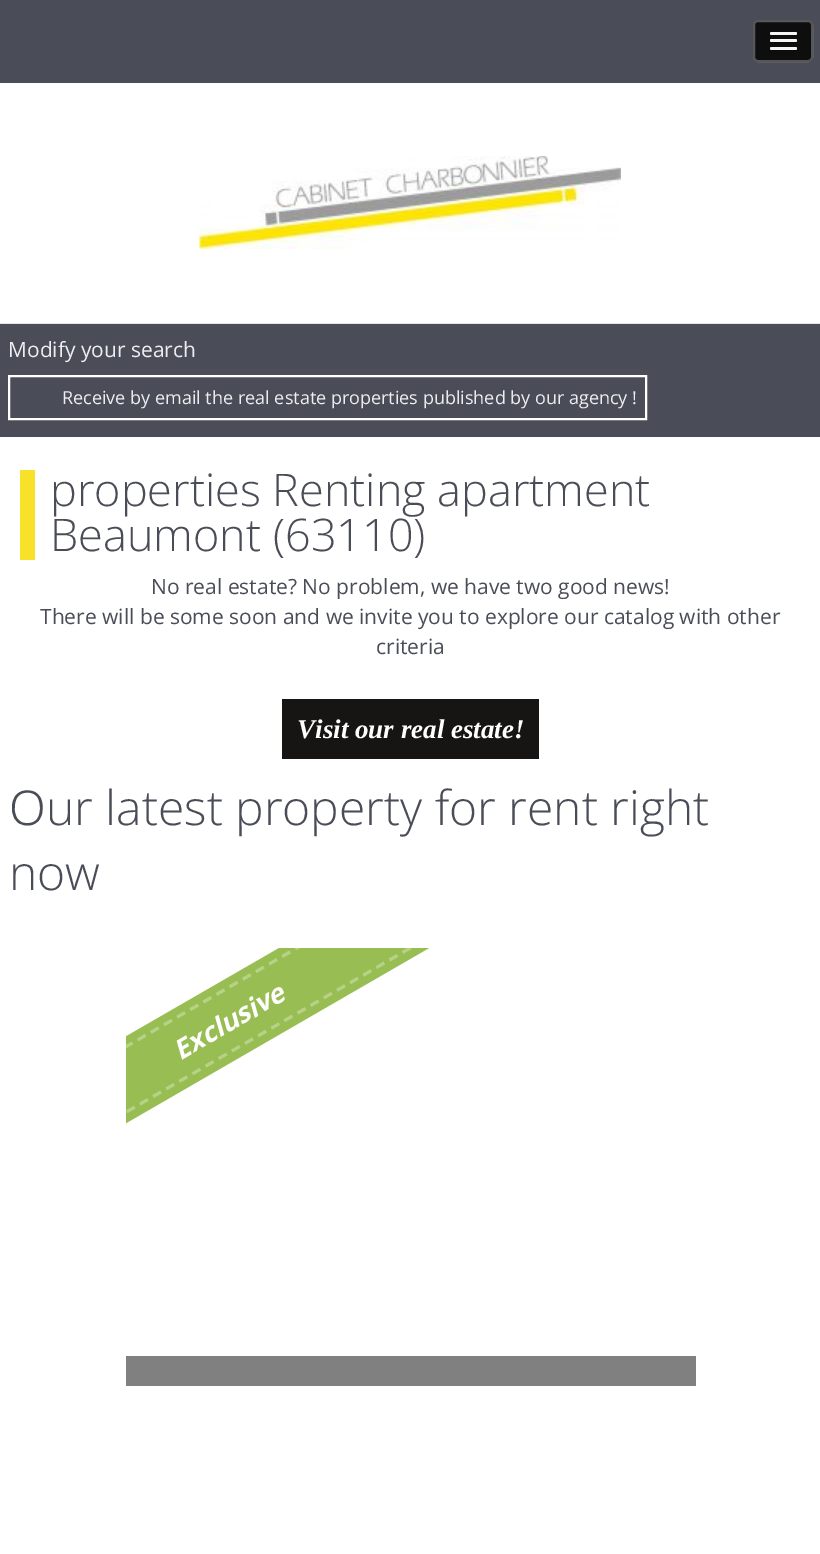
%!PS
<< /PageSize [820 1554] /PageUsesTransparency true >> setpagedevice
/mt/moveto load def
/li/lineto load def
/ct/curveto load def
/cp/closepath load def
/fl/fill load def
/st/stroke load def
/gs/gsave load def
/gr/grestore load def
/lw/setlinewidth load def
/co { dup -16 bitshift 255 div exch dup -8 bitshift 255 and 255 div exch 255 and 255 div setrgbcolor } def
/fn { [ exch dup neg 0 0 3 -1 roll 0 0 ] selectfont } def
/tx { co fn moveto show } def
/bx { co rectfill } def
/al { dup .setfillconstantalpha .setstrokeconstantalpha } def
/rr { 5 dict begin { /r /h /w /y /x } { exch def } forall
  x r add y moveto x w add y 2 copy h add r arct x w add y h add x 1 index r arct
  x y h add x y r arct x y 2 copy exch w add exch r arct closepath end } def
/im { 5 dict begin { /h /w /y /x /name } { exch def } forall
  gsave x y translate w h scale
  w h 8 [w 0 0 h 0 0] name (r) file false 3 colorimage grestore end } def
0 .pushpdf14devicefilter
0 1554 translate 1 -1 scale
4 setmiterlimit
0 0 820 1554 16#FFFFFF bx
0 0 820 83 16#4A4D57 bx
16#0E0E0E co
753 20 60 42 5 rr fl
0.3 al
16#FFFFFF co
2 lw
754 21 58 40 4 rr st
1 al
16#0B0B0B co
770 34 mt 769.5 37 775 36 775.5 36 ct 795.5 36 li 797 36 797.5 34 796.5 33.5 ct 795.5 34.5 li 794 35 770.5 34.5 770 34 ct cp fl
16#F5F5F5 co
770 32 27 3 1.5 rr fl
16#0B0B0B co
770 42 mt 768.5 45 775.5 44 775.5 44 ct 796 44 li 797 43.5 797.5 42 796.5 41 ct 795 42 li 793 42.5 771 42.5 770 42 ct cp fl
16#F5F5F5 co
770 39 27 3 1.5 rr fl
16#0B0B0B co
770 49 mt 769.5 52 775 51 775.5 51 ct 795.5 51 li 797 51 797.5 49 796.5 48.5 ct 795.5 49.5 li 794 50 770.5 49.5 770 49 ct cp fl
16#F5F5F5 co
770 47 27 3 1.5 rr fl
0 323 820 1 16#E6E6E6 bx
(media/1.raw) 199 156 422 93 im
0 324 820 113 16#4A4D57 bx
16#FFFFFF co
9 376 637 43 rectstroke
20 470 15 90 16#F7E229 bx
282 699 257 60 16#171514 bx
gs
126 948 570 438 rectclip
16#98BD52 co
-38 1131 mt 456 846 li 493 911 li 0 1196 li cp fl
gr
126 1356 570 30 16#808080 bx
(Modify your search) 8 357 /OpenSans-Regular 21 16#EEEEF2 tx
(Receive by email the real estate properties published by our agency !) 62 404 /OpenSans-Regular 18 16#EEEEF2 tx
(properties Renting apartment) 50 506 /OpenSans-Light 45 16#4A4D57 tx
(Beaumont \(63110\)) 50 551 /OpenSans-Light 45 16#4A4D57 tx
(No real estate? No problem, we have two good news!) 151 594 /OpenSans-Regular 21 16#4A4D57 tx
(There will be some soon and we invite you to explore our catalog with other) 40 624 /OpenSans-Regular 21 16#4A4D57 tx
(criteria) 376 654 /OpenSans-Regular 21 16#4A4D57 tx
(Visit our real estate!) 297 738 /LiberationSerif-BoldItalic 27 16#FFFFFF tx
(O) 9 825 /NotoSans-Light 48 16#4A4D57 tx
(ur latest property for rent right) 46 825 /OpenSans-Light 48 16#4A4D57 tx
(now) 9 890 /OpenSans-Light 48 16#4A4D57 tx
/NotoSans-BoldItalic 27 fn
16#FFFFFF co
gs 180 1061 translate -30 rotate 0 0 mt (E) show gr
/OpenSans-BoldItalic 27 fn
gs 193 1053 translate -30 rotate 0 0 mt (xclusive) show gr
gs
126 948 570 438 rectclip
16#B7D186 co
3 lw
[9 6.17] 0 setdash
-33 1138.5 mt 460.5 853.5 li st
-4.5 1187.5 mt 489 902.5 li st
gr
.poppdf14devicefilter showpage
